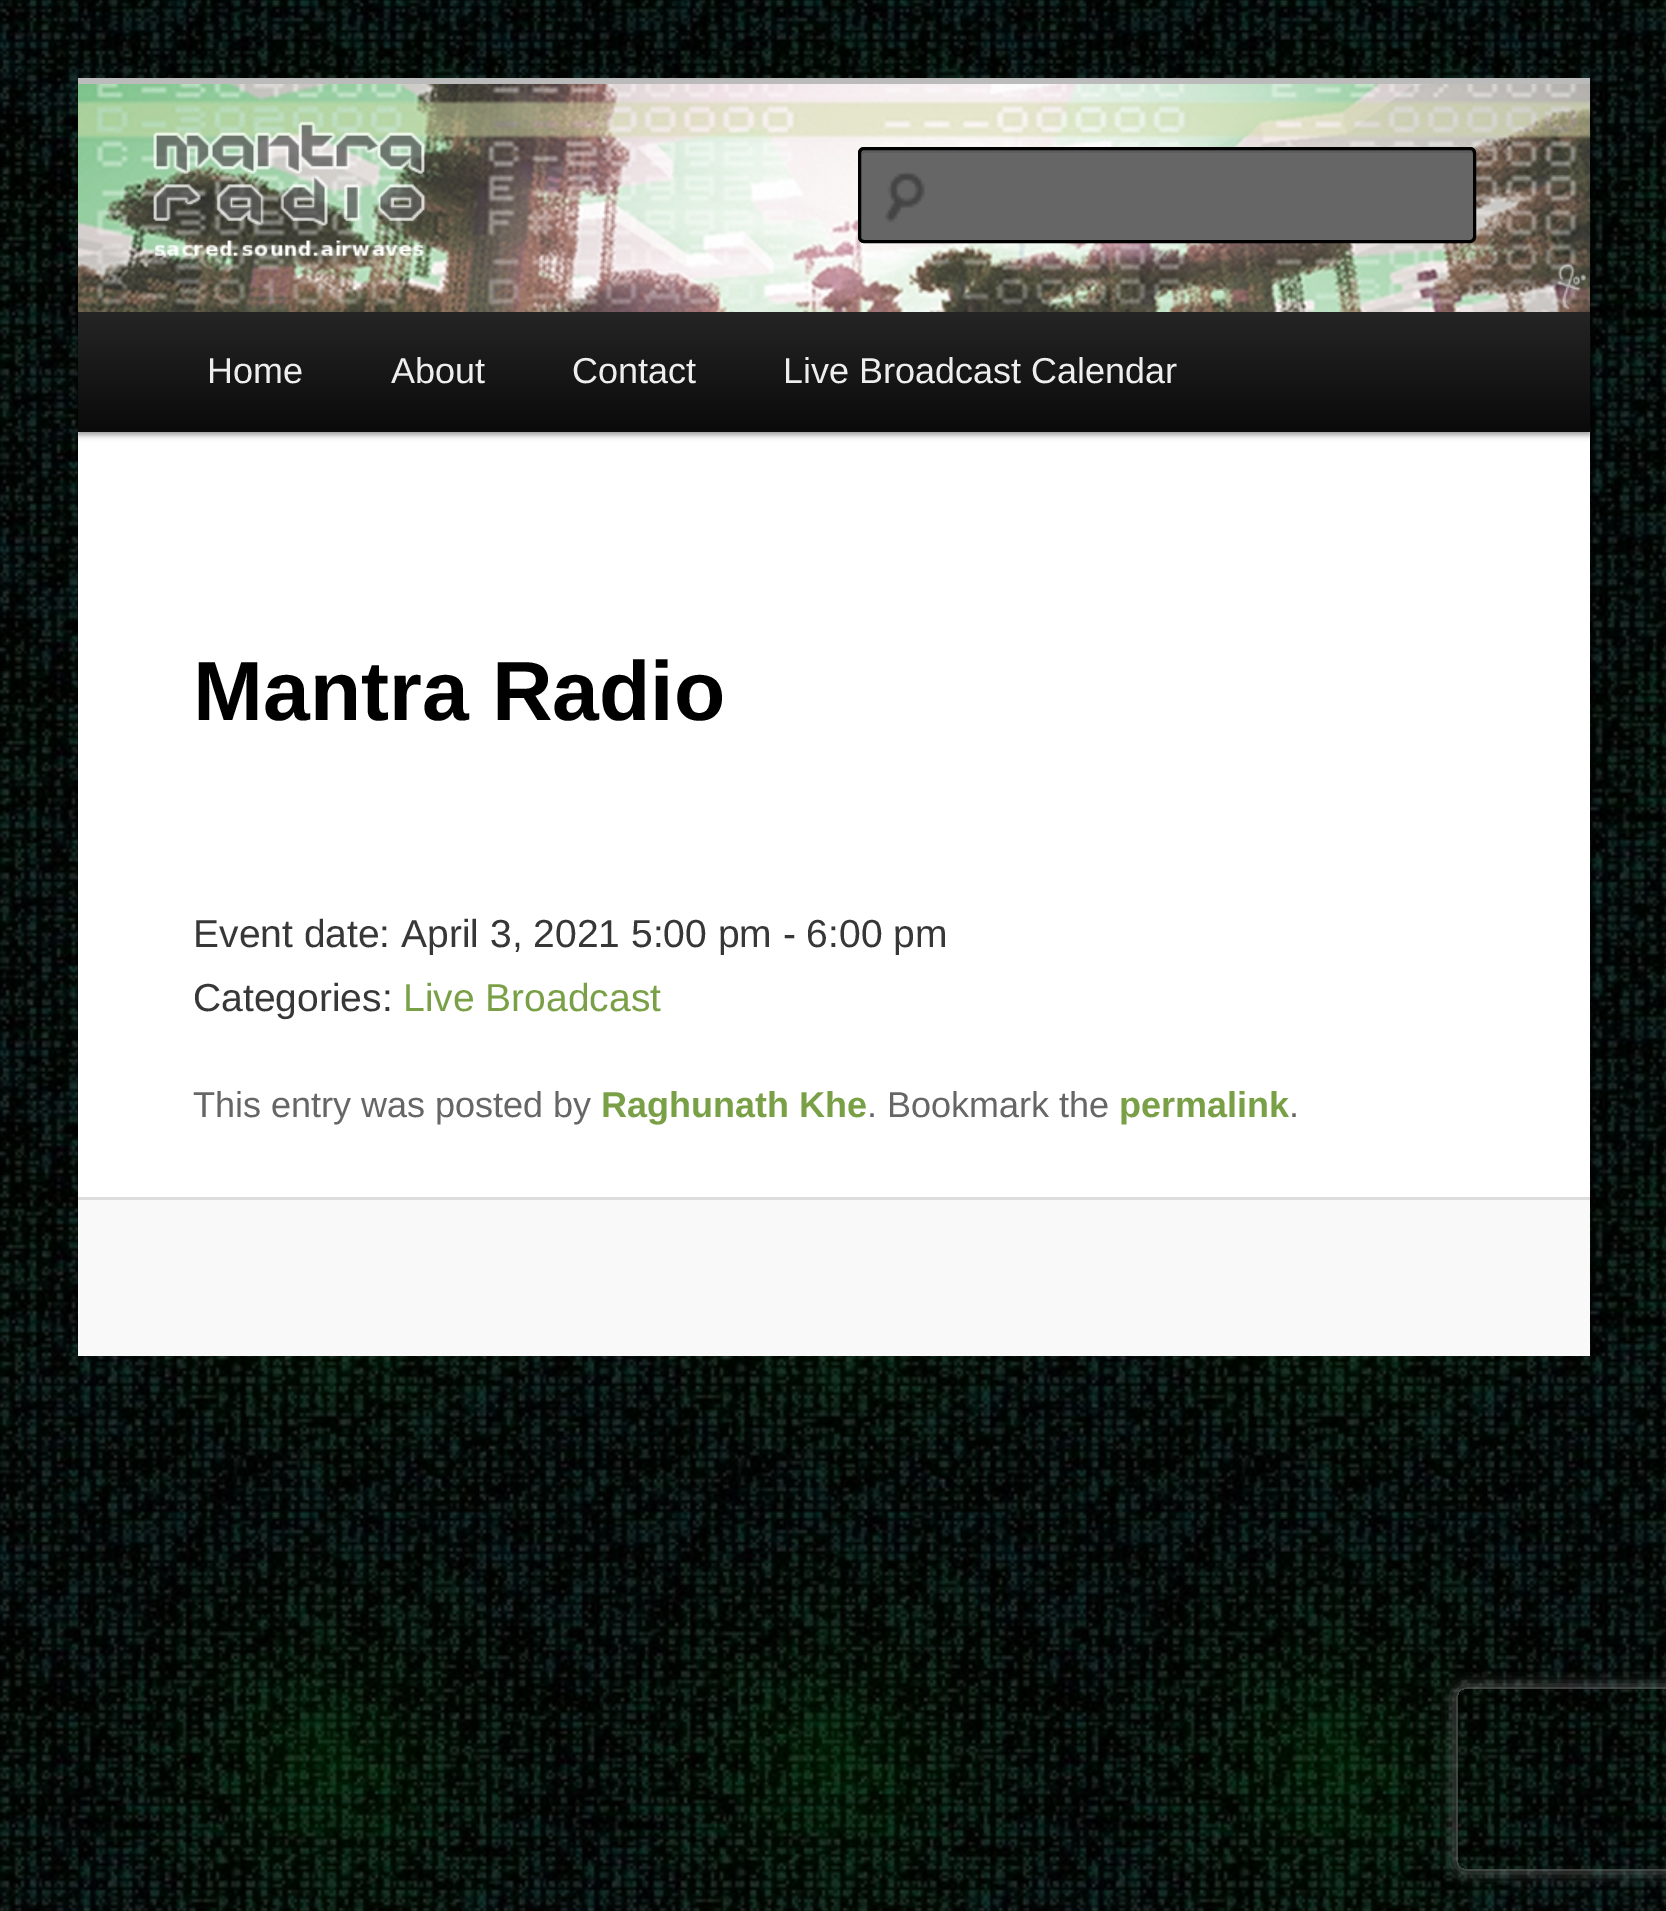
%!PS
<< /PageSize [1666 1911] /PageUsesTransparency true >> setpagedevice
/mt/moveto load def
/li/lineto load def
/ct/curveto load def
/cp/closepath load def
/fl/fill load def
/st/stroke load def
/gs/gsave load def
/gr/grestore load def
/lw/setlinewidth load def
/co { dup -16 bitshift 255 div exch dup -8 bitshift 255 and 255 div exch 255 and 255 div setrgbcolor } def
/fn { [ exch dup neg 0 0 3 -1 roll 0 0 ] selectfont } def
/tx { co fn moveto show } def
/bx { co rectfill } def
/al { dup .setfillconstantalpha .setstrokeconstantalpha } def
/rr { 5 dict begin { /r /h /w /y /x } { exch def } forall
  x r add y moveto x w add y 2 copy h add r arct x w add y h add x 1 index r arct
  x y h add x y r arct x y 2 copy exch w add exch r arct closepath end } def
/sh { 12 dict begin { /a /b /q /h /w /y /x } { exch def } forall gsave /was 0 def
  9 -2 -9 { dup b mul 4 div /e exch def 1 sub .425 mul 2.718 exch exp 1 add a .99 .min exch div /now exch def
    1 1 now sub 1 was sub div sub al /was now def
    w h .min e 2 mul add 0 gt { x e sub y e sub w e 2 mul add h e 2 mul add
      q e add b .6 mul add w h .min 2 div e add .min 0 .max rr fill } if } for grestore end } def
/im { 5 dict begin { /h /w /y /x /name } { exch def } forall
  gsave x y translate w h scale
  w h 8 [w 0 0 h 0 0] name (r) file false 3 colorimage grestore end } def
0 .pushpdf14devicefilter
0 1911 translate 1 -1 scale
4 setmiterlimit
0 0 1666 1911 16#FFFFFF bx
(media/1.raw) 0 0 1666 1911 im
78 432 1512 765 16#FFFFFF bx
78 78 1512 6 16#BBBBBB bx
16#000000 co
78 315 1512 120 0 3 .4 sh
(media/2.raw) 78 84 1512 228 im
16#666666 co
858 147 618 96 6 rr fl
(media/3.raw) 885 172 40 51 im
16#5C5C5C co
864 153 mt 1470 153 li 1472 153 1473 154 1473 156 ct 1472 151 li 1470 150 li 864 150 li 861 150 861 154 861 156 ct 861 154 862 153 864 153 ct cp fl
16#000000 co
3 lw
859.5 148.5 615 93 4.5 rr st
gs 78 312 mt 1590 312 li 1590 432 li 78 432 li cp clip newpath
<< /ShadingType 2 /ColorSpace /DeviceRGB /Coords [834 312 834 432] /Extend [true true] /Function << /FunctionType 2 /Domain [0 1] /C0 [.145 .145 .145] /C1 [.039 .039 .039] /N 1 >> >> shfill gr
78 1200 1512 156 16#F9F9F9 bx
78 1197 1512 3 16#DDDDDD bx
gs
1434 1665 mt 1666 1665 li 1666 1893 li 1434 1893 li cp 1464 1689 mt 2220 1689 li 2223.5 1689 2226 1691.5 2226 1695 ct 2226 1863 li 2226 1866.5 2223.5 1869 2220 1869 ct 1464 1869 li 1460.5 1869 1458 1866.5 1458 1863 ct 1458 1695 li 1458 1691.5 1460.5 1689 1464 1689 ct cp eoclip newpath
16#808080 co
1458 1689 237 180 6 7.5 1 sh
gr
(Home) 207 383 /LiberationSans-Regular 36 16#EEEEEE tx
(About) 391 383 /LiberationSans-Regular 36 16#EEEEEE tx
(Contact) 572 383 /LiberationSans-Regular 36 16#EEEEEE tx
(Live Broadcast Calendar) 783 383 /LiberationSans-Regular 36 16#EEEEEE tx
(Mantra Radio) 193 720 /LiberationSans-Bold 84 16#000000 tx
(Event date: April 3, 2021 5:00 pm - 6:00 pm) 193 947 /LiberationSans-Regular 39 16#373737 tx
(Categories:) 193 1011 /LiberationSans-Regular 39 16#373737 tx
(Live Broadcast) 403 1011 /LiberationSans-Regular 39 16#79A046 tx
(This entry was posted by) 193 1117 /LiberationSans-Regular 36 16#666666 tx
(Raghunath Khe) 601 1117 /LiberationSans-Bold 36 16#79A046 tx
(. Bookmark the) 867 1117 /LiberationSans-Regular 36 16#666666 tx
(permalink) 1119 1117 /LiberationSans-Bold 36 16#79A046 tx
(.) 1289 1117 /LiberationSans-Regular 36 16#666666 tx
.poppdf14devicefilter showpage
